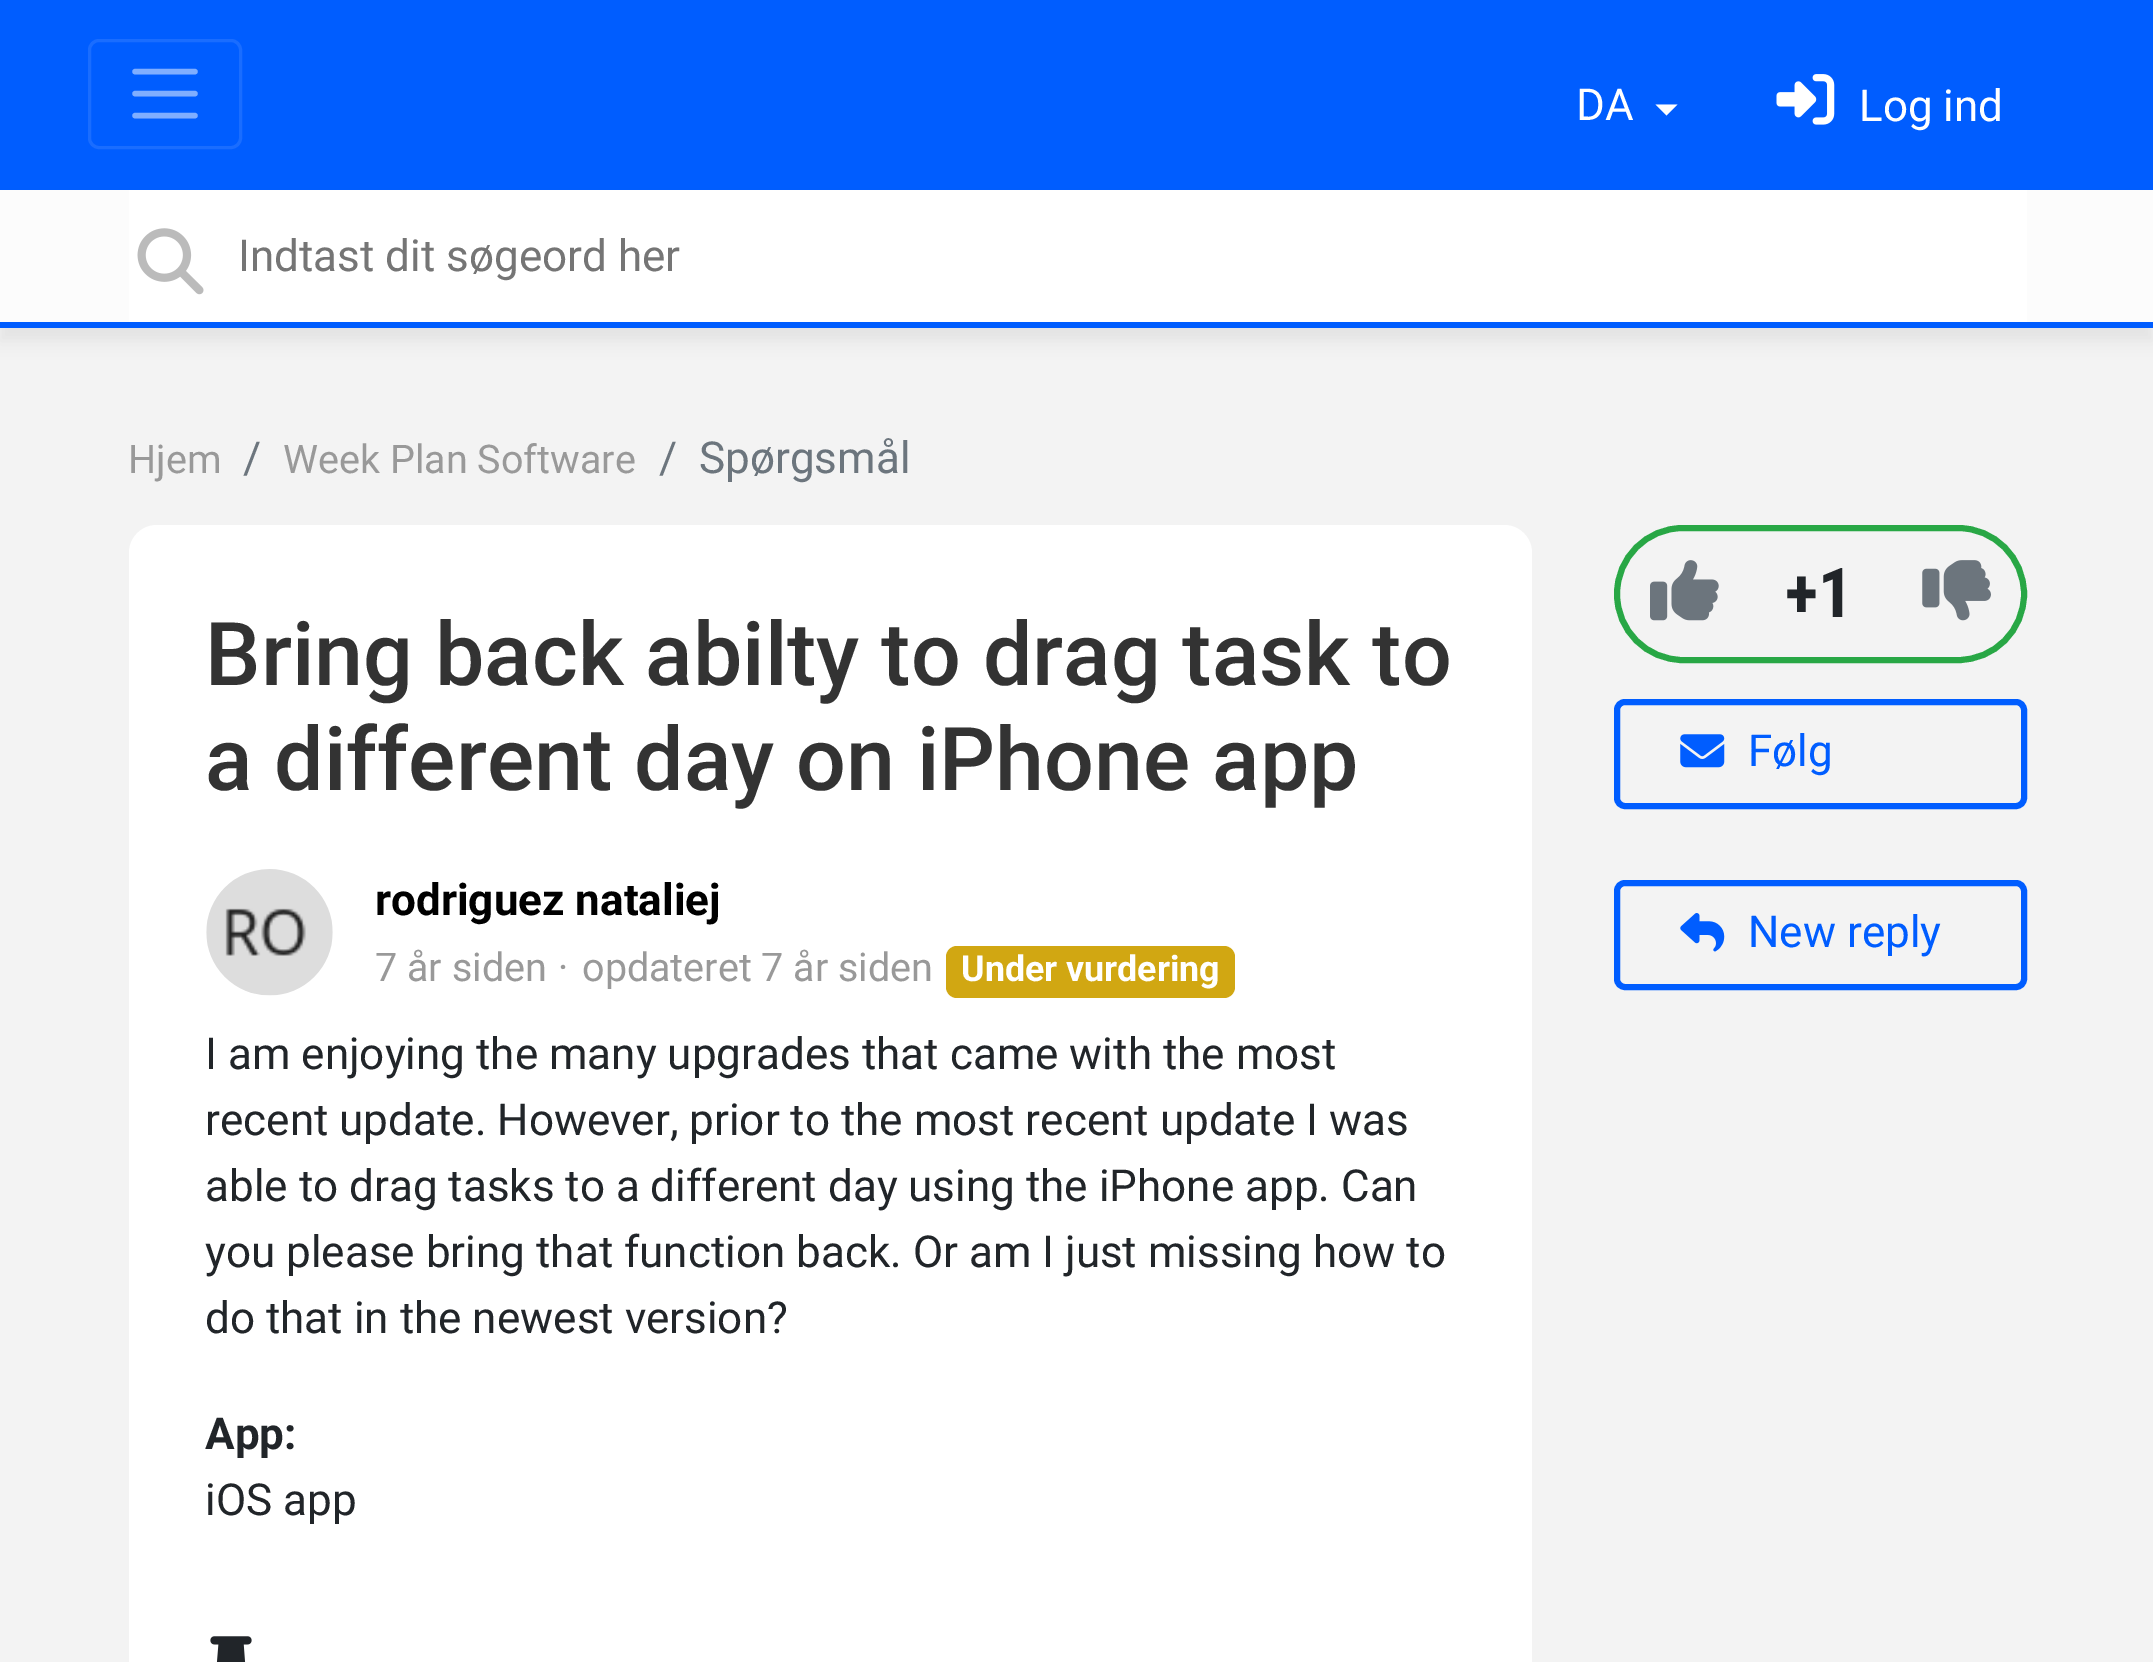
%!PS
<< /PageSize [2153 1662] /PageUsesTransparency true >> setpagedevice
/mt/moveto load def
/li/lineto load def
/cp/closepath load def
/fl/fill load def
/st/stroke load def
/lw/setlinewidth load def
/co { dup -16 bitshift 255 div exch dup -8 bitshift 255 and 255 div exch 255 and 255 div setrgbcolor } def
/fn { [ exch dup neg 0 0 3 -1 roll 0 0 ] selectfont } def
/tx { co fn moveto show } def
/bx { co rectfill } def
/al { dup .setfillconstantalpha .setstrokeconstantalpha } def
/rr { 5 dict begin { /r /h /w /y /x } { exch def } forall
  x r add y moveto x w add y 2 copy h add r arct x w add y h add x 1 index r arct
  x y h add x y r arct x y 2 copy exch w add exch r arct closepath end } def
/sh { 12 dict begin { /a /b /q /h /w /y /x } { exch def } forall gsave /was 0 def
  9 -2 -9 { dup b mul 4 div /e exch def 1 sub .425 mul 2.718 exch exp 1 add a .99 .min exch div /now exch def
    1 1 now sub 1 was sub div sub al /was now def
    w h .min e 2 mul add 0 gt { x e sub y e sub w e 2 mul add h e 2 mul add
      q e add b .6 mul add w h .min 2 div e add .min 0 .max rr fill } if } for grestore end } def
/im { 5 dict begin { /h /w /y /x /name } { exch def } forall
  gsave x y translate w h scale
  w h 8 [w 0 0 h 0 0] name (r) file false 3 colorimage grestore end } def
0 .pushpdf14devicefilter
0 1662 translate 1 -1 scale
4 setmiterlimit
0 0 2153 1662 16#F3F3F3 bx
0 0 2153 190 16#005DFF bx
16#1A6DFF co
3 lw
89.5 40.5 151 107 9.5 rr st
16#80AEFF co
5.5 lw
1 setlinecap
135 71.5 mt 195 71.5 li 135 93.5 mt 195 93.5 li 135 115.5 mt 195 115.5 li st
16#FFFFFF co
1655.5 104.5 mt 1677.5 104.5 li 1666.5 115.5 li cp fl
(media/1.raw) 1776 74 59 51 im
16#646464 co
0 204 2153 137 0 7 .1 sh
0 190 2153 132 16#FCFCFC bx
0 322 2153 6 16#005DFF bx
129 190 1898 132 16#FFFFFF bx
(media/2.raw) 137 228 67 67 im
129 525 1403 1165 28 rr fl
(media/3.raw) 206 869 127 127 im
16#D1A712 co
946 946 289 52 11 rr fl
(media/4.raw) 210 1636 42 26 im
16#28A745 co
6 lw
0 setlinecap
1617 528 407 132 66 rr st
(media/5.raw) 1650 560 69 61 im
(media/6.raw) 1922 560 69 61 im
16#005DFF co
1617 702 407 104 8 rr st
(media/7.raw) 1680 734 45 34 im
1617 883 407 104 8 rr st
(media/8.raw) 1680 913 45 39 im
(DA) 1576 120 /Roboto-Regular 44 16#FFFFFF tx
(Log ind) 1859 121 /Roboto-Regular 44 16#FFFFFF tx
(Indtast dit søgeord her) 238 271 /Roboto-Regular 44 16#757575 tx
(Hjem) 128 473 /Roboto-Regular 39.5 16#999999 tx
(/) 243 473 /Roboto-Regular 44 16#6C757D tx
(Week Plan Software) 283 473 /Roboto-Regular 39.5 16#999999 tx
(/) 659 473 /Roboto-Regular 44 16#6C757D tx
(Spørgsmål) 699 473 /Roboto-Regular 44 16#6C757D tx
(Bring back abilty to drag task to) 205 685 /Roboto-Medium 88 16#333333 tx
(a different day on iPhone app) 205 790 /Roboto-Medium 88 16#333333 tx
(rodriguez nataliej) 375 915 /Roboto-Bold 44 16#000000 tx
(7 år siden) 375 981 /Roboto-Regular 39.5 16#999999 tx
(·) 558 981 /Roboto-Regular 39.5 16#999999 tx
(opdateret 7 år siden) 582 981 /Roboto-Regular 39.5 16#999999 tx
(Under vurdering) 961 981 /Roboto-Bold 35.75 16#FFFFFF tx
(I am enjoying the many upgrades that came with the most) 205 1069 /Roboto-Regular 44 16#212529 tx
(recent update. However, prior to the most recent update I was) 205 1135 /Roboto-Regular 44 16#212529 tx
(able to drag tasks to a different day using the iPhone app. Can) 205 1201 /Roboto-Regular 44 16#212529 tx
(you please bring that function back. Or am I just missing how to) 205 1267 /Roboto-Regular 44 16#212529 tx
(do that in the newest version?) 205 1333 /Roboto-Regular 44 16#212529 tx
(App:) 205 1449 /Roboto-Bold 44 16#212529 tx
(iOS app) 205 1515 /Roboto-Regular 44 16#212529 tx
(+1) 1785 617 /RobotoCondensed-Bold 69 16#212529 tx
(Følg) 1748 766 /Roboto-Regular 44 16#005DFF tx
(New reply) 1748 947 /Roboto-Regular 44 16#005DFF tx
.poppdf14devicefilter showpage
